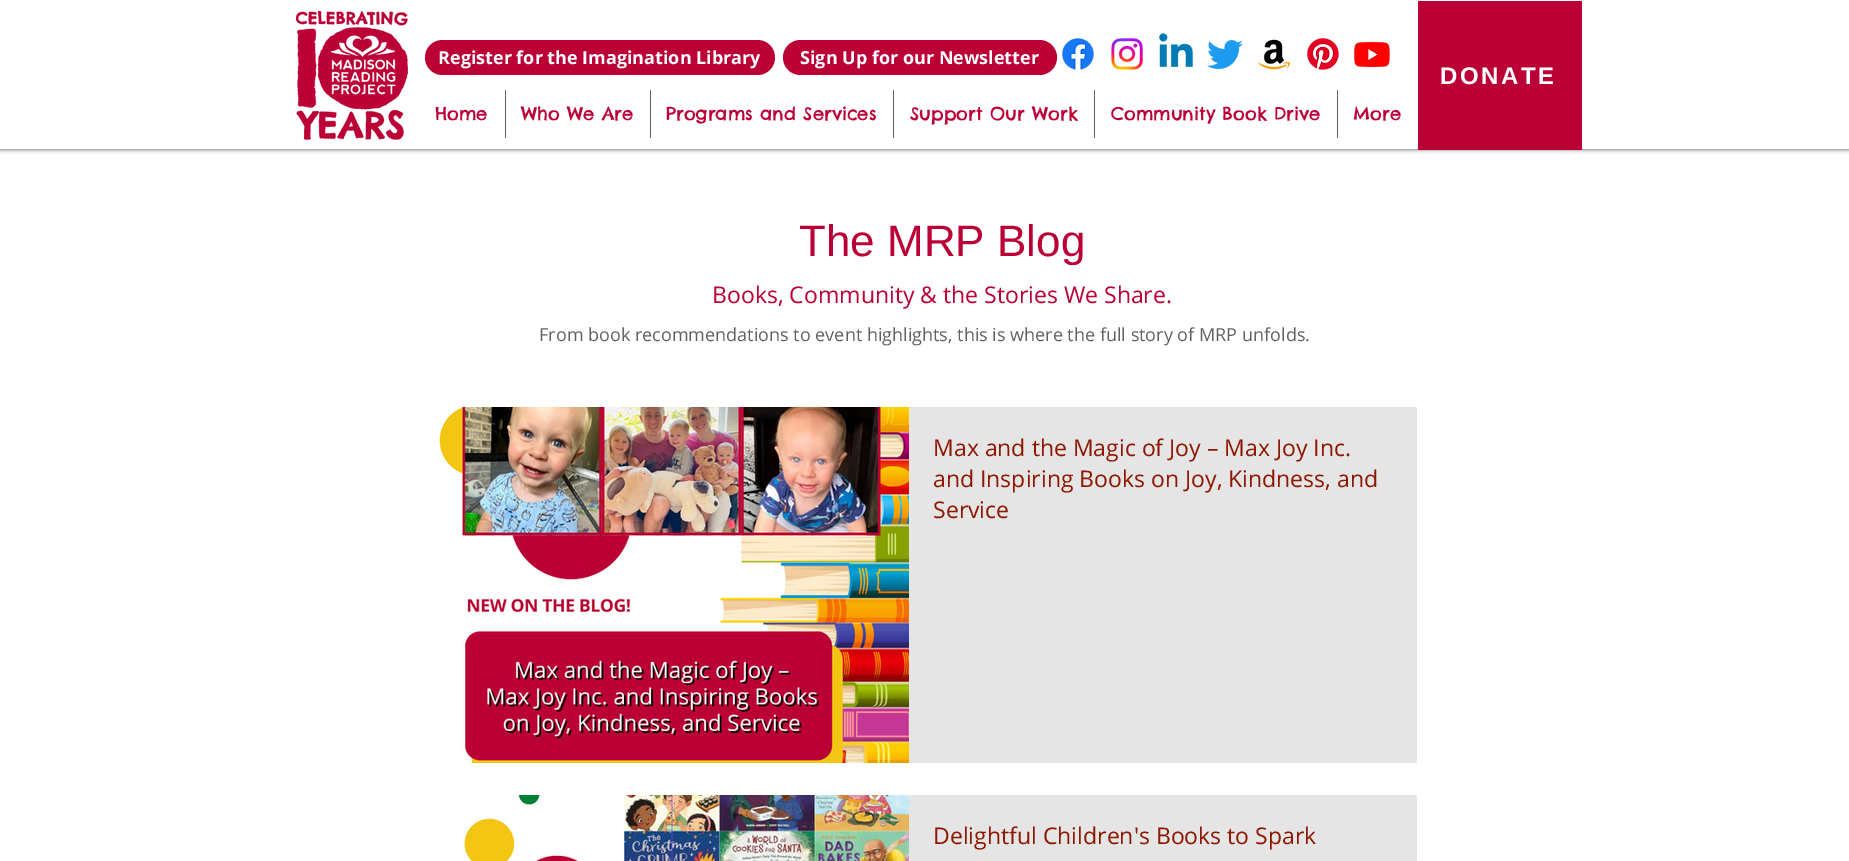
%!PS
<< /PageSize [1849 861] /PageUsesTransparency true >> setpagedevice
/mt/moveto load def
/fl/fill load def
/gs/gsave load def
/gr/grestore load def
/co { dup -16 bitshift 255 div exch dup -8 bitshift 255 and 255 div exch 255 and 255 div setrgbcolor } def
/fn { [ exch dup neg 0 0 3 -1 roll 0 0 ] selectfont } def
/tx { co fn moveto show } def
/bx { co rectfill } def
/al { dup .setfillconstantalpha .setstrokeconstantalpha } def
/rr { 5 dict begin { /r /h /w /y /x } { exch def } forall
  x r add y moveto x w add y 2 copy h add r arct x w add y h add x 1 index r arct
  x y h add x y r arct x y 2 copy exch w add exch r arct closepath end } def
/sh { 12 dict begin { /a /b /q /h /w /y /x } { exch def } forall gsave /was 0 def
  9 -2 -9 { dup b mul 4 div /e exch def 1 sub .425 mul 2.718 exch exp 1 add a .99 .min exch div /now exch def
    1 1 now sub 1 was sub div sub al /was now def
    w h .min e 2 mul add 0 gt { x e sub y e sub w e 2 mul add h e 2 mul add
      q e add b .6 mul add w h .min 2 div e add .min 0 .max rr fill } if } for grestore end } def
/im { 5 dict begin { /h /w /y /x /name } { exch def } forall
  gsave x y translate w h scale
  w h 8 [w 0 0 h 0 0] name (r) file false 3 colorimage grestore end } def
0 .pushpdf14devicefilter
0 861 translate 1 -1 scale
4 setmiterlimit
0 0 1849 861 16#FFFFFF bx
gs
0 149 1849 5 rectclip
16#000000 co
0 0 1849 149 0 2.5 .7 sh
gr
(media/1.raw) 296 11 112 129 im
16#BB0036 co
425 40 350 35 17.5 rr fl
783 40 274 35 17.5 rr fl
(media/2.raw) 1062 38 32 32 im
(media/3.raw) 1111 38 32 32 im
(media/4.raw) 1159 33 34 34 im
(media/5.raw) 1207 39 36 31 im
(media/6.raw) 1258 39 32 31 im
(media/7.raw) 1307 38 32 32 im
(media/8.raw) 1354 41 36 27 im
1418 1 164 149 16#BB0036 bx
505 90 1 48 16#606060 bx
650 90 1 48 16#606060 bx
893 90 1 48 16#606060 bx
1094 90 1 48 16#606060 bx
1337 90 1 48 16#606060 bx
(media/9.raw) 434 407 475 356 im
909 407 508 356 16#E5E5E5 bx
(media/10.raw) 434 795 475 66 im
909 795 508 66 16#E5E5E5 bx
(Register for the Imagination Library) 438 64 /OpenSans-Bold 18 16#FFFFFF tx
(Sign Up for our Newsletter) 800 64 /OpenSans-Bold 18 16#FFFFFF tx
/LiberationSans-Bold 24 fn
1440 84 mt 2.5 0 (DONATE) ashow
(Home) 435 120 /ChelseaMarket-Regular 18 16#BB0036 tx
(Who We Are) 521 120 /ChelseaMarket-Regular 18 16#BB0036 tx
(Programs and Services) 666 120 /ChelseaMarket-Regular 18 16#BB0036 tx
(Support Our Work) 910 120 /ChelseaMarket-Regular 18 16#BB0036 tx
(Community Book Drive) 1111 120 /ChelseaMarket-Regular 18 16#BB0036 tx
(More) 1353 120 /ChelseaMarket-Regular 18 16#BB0036 tx
(The MRP Blog) 799 256 /LiberationSans-Regular 44 16#BB0036 tx
(Books, Community & the Stories We Share.) 712 303 /OpenSans-Regular 23 16#BB0036 tx
(From book recommendations to event highlights, this is where the full story of MRP unfolds.) 539 341 /OpenSans-Regular 18 16#606060 tx
(Max and the Magic of Joy – Max Joy Inc.) 933 456 /OpenSans-Regular 23 16#8D1700 tx
(and Inspiring Books on Joy, Kindness, and) 933 487 /OpenSans-Regular 23 16#8D1700 tx
(Service) 933 518 /OpenSans-Regular 23 16#8D1700 tx
(Delightful Children's Books to Spark) 933 844 /OpenSans-Regular 23 16#8D1700 tx
.poppdf14devicefilter showpage
